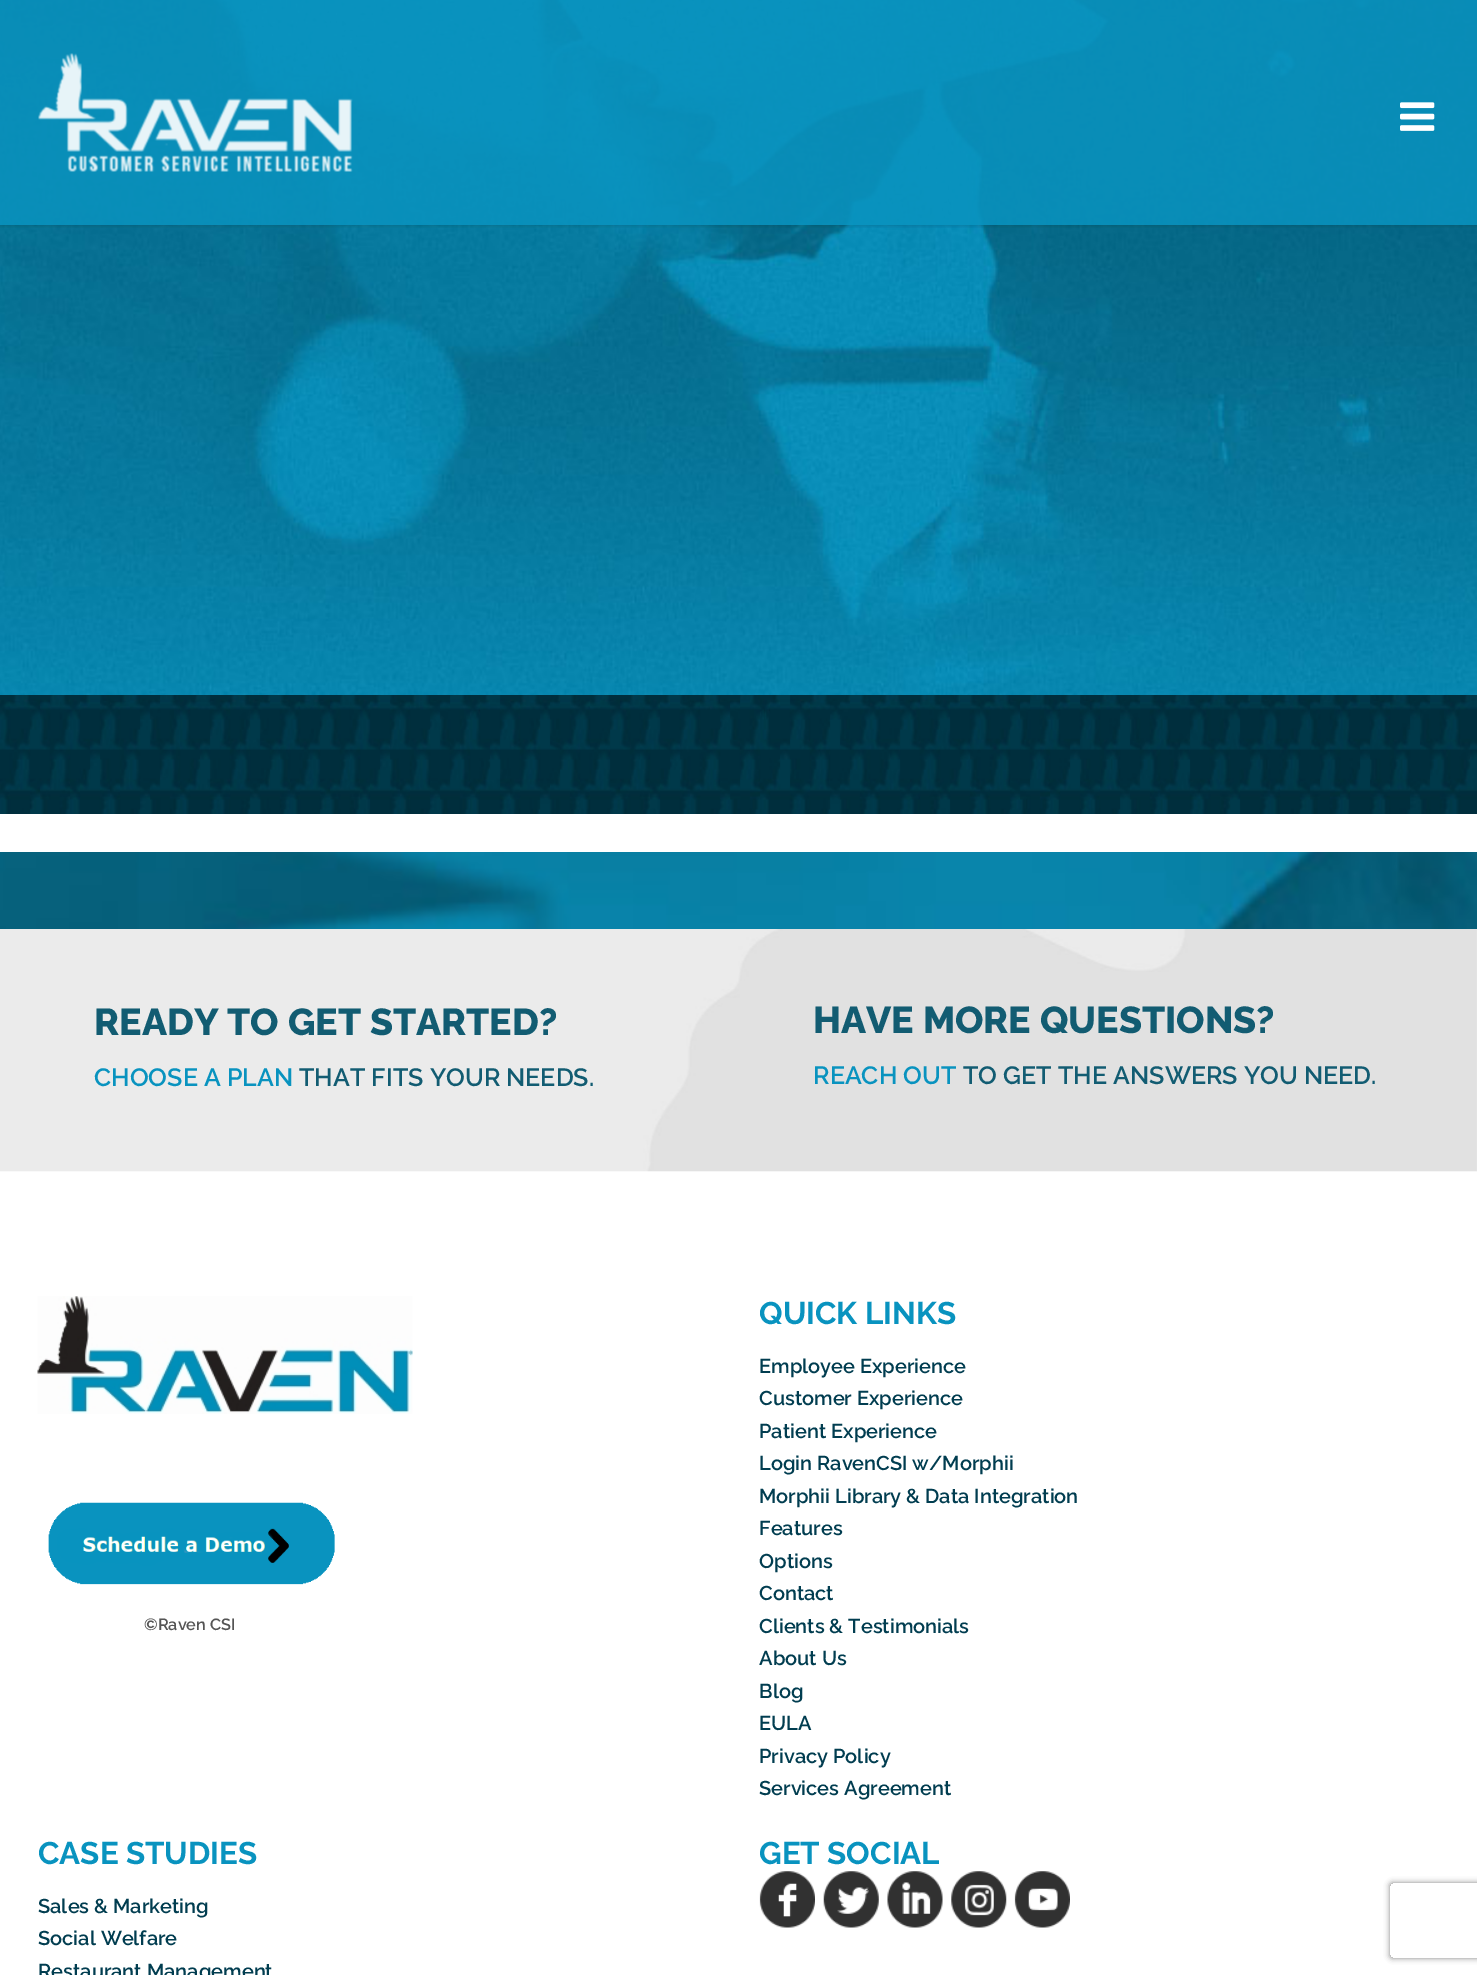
%!PS
<< /PageSize [1477 1975] /PageUsesTransparency true >> setpagedevice
/mt/moveto load def
/li/lineto load def
/ct/curveto load def
/cp/closepath load def
/gs/gsave load def
/gr/grestore load def
/co { dup -16 bitshift 255 div exch dup -8 bitshift 255 and 255 div exch 255 and 255 div setrgbcolor } def
/fn { [ exch dup neg 0 0 3 -1 roll 0 0 ] selectfont } def
/tx { co fn moveto show } def
/bx { co rectfill } def
/al { dup .setfillconstantalpha .setstrokeconstantalpha } def
/rr { 5 dict begin { /r /h /w /y /x } { exch def } forall
  x r add y moveto x w add y 2 copy h add r arct x w add y h add x 1 index r arct
  x y h add x y r arct x y 2 copy exch w add exch r arct closepath end } def
/sh { 12 dict begin { /a /b /q /h /w /y /x } { exch def } forall gsave /was 0 def
  9 -2 -9 { dup b mul 4 div /e exch def 1 sub .425 mul 2.718 exch exp 1 add a .99 .min exch div /now exch def
    1 1 now sub 1 was sub div sub al /was now def
    w h .min e 2 mul add 0 gt { x e sub y e sub w e 2 mul add h e 2 mul add
      q e add b .6 mul add w h .min 2 div e add .min 0 .max rr fill } if } for grestore end } def
/im { 5 dict begin { /h /w /y /x /name } { exch def } forall
  gsave x y translate w h scale
  w h 8 [w 0 0 h 0 0] name (r) file false 3 colorimage grestore end } def
0 .pushpdf14devicefilter
0 1975 translate 1 -1 scale
4 setmiterlimit
0 0 1477 1975 16#FFFFFF bx
(media/3.raw) 0 0 1477 695 im
gs
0 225 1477 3 rectclip
16#000000 co
0 1 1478 225 0 2 .12 sh
gr
0.85 al
0 0 1477 225 16#0993BF bx
1 al
(media/1.raw) 38 53 315 119 im
(media/2.raw) 1400 102 35 29 im
(media/4.raw) 0 695 1477 119 im
(media/5.raw) 0 852 1477 77 im
(media/6.raw) 0 929 1477 243 im
(media/7.raw) 37 1296 376 118 im
(media/8.raw) 48 1502 287 83 im
(media/9.raw) 759 1871 56 57 im
(media/10.raw) 823 1871 56 57 im
(media/11.raw) 887 1871 56 57 im
(media/12.raw) 951 1871 56 57 im
(media/13.raw) 1014 1871 56 57 im
gs
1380 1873 mt 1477 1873 li 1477 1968 li 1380 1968 li cp 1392.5 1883 mt 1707.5 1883 li 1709 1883 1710 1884 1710 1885.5 ct 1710 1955.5 li 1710 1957 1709 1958 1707.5 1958 ct 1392.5 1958 li 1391 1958 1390 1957 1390 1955.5 ct 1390 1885.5 li 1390 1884 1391 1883 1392.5 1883 ct cp eoclip newpath
16#808080 co
1390 1883 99 75 2.5 3 1 sh
gr
(READY TO GET STARTED?) 94 1035 /Raleway-ExtraBold 37.5 16#125C72 tx
(CHOOSE A PLAN) 94 1086 /Raleway-SemiBold 25 16#0993BF tx
(THAT FITS YOUR NEEDS.) 299 1086 /Raleway-SemiBold 25 16#125C72 tx
(HAVE MORE QUESTIONS?) 813 1033 /Raleway-ExtraBold 37.5 16#125C72 tx
(REACH OUT) 813 1084 /Raleway-SemiBold 25 16#0993BF tx
(TO GET THE ANSWERS YOU NEED.) 963 1084 /Raleway-SemiBold 25 16#125C72 tx
(©Raven CSI) 144 1630 /Raleway-SemiBold 16.25 16#555555 tx
(QUICK LINKS) 759 1324 /Raleway-Bold 31.25 16#0993BF tx
(Employee Experience) 759 1373 /Raleway-SemiBold 20 16#013D50 tx
(Customer Experience) 759 1405 /Raleway-SemiBold 20 16#013D50 tx
(Patient Experience) 759 1438 /Raleway-SemiBold 20 16#013D50 tx
(Login RavenCSI w/Morphii) 759 1470 /Raleway-SemiBold 20 16#013D50 tx
(Morphii Library & Data Integration) 759 1503 /Raleway-SemiBold 20 16#013D50 tx
(Features) 759 1535 /Raleway-SemiBold 20 16#013D50 tx
(Options) 759 1568 /Raleway-SemiBold 20 16#013D50 tx
(Contact) 759 1600 /Raleway-SemiBold 20 16#013D50 tx
(Clients & Testimonials) 759 1633 /Raleway-SemiBold 20 16#013D50 tx
(About Us) 759 1665 /Raleway-SemiBold 20 16#013D50 tx
(Blog) 759 1698 /Raleway-SemiBold 20 16#013D50 tx
(EULA) 759 1730 /Raleway-SemiBold 20 16#013D50 tx
(Privacy Policy) 759 1763 /Raleway-SemiBold 20 16#013D50 tx
(Services Agreement) 759 1795 /Raleway-SemiBold 20 16#013D50 tx
(CASE STUDIES) 38 1864 /Raleway-Bold 31.25 16#0993BF tx
(Sales & Marketing) 38 1913 /Raleway-SemiBold 20 16#013D50 tx
(Social Welfare) 38 1945 /Raleway-SemiBold 20 16#013D50 tx
(Restaurant Management) 38 1978 /Raleway-SemiBold 20 16#013D50 tx
(GET SOCIAL) 759 1864 /Raleway-Bold 31.25 16#0993BF tx
.poppdf14devicefilter showpage
